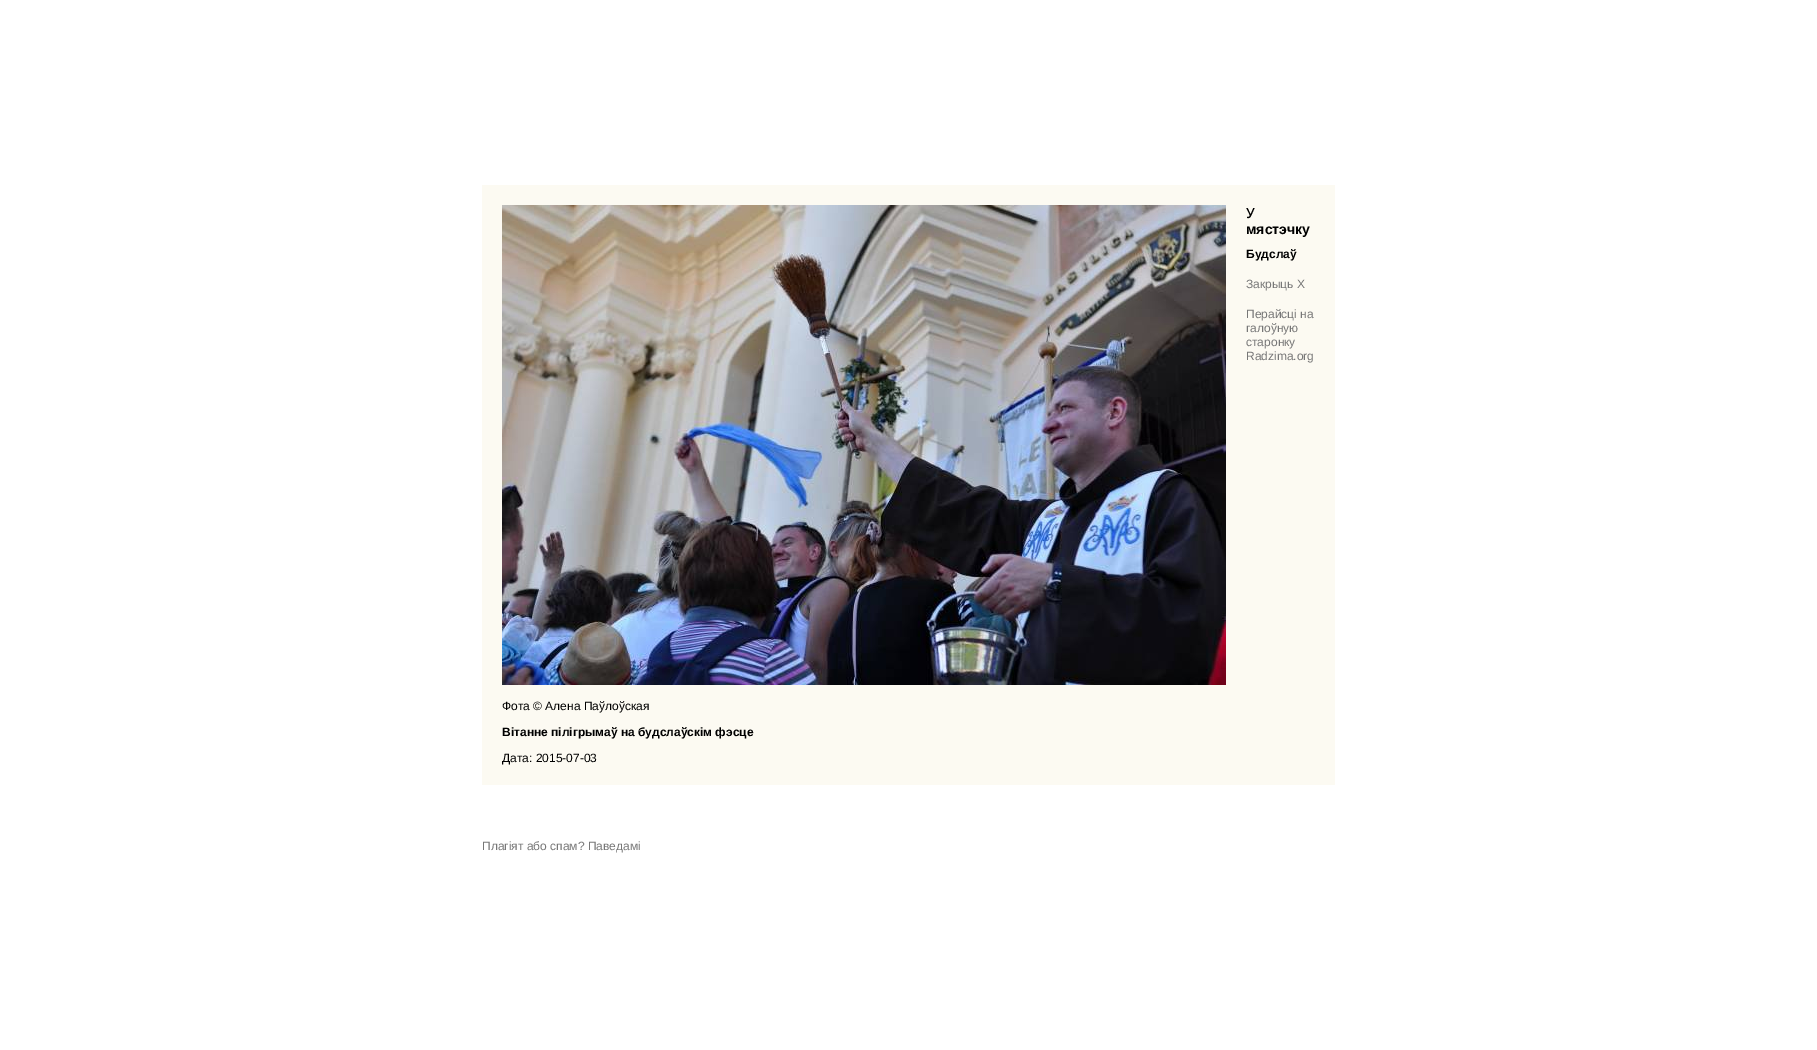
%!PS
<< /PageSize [1817 1050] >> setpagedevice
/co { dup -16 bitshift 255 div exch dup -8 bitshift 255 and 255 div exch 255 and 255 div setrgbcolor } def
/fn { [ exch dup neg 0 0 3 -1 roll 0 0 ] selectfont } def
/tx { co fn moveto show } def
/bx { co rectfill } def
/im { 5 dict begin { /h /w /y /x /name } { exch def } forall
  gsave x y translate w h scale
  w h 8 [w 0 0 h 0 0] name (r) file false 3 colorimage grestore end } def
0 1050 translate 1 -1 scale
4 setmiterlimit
0 0 1817 1050 16#FFFFFF bx
482 185 853 600 16#FCFAF2 bx
(media/1.raw) 502 205 724 480 im
(У) 1246 218 /NotoSans-Medium 14 16#000000 tx
(мястэчку) 1246 234 /LiberationSans-Bold 14 16#000000 tx
(Будслаў) 1246 258 /LiberationSans-Bold 12 16#000000 tx
(Закрыць X) 1246 288 /LiberationSans-Regular 12 16#777777 tx
(Перайсці на) 1246 318 /LiberationSans-Regular 12 16#777777 tx
(галоўную) 1246 332 /LiberationSans-Regular 12 16#777777 tx
(старонку) 1246 346 /LiberationSans-Regular 12 16#777777 tx
(Radzima.org) 1246 360 /LiberationSans-Regular 12 16#777777 tx
(Фота © Алена Паўлоўская) 502 710 /LiberationSans-Regular 12 16#000000 tx
(Вітанне пілігрымаў на будслаўскім фэсце) 502 736 /LiberationSans-Bold 12 16#000000 tx
(Дата: 2015-07-03) 502 762 /LiberationSans-Regular 12 16#000000 tx
(Плагіят або спам? Паведамі) 482 850 /LiberationSans-Regular 12 16#777777 tx
showpage
